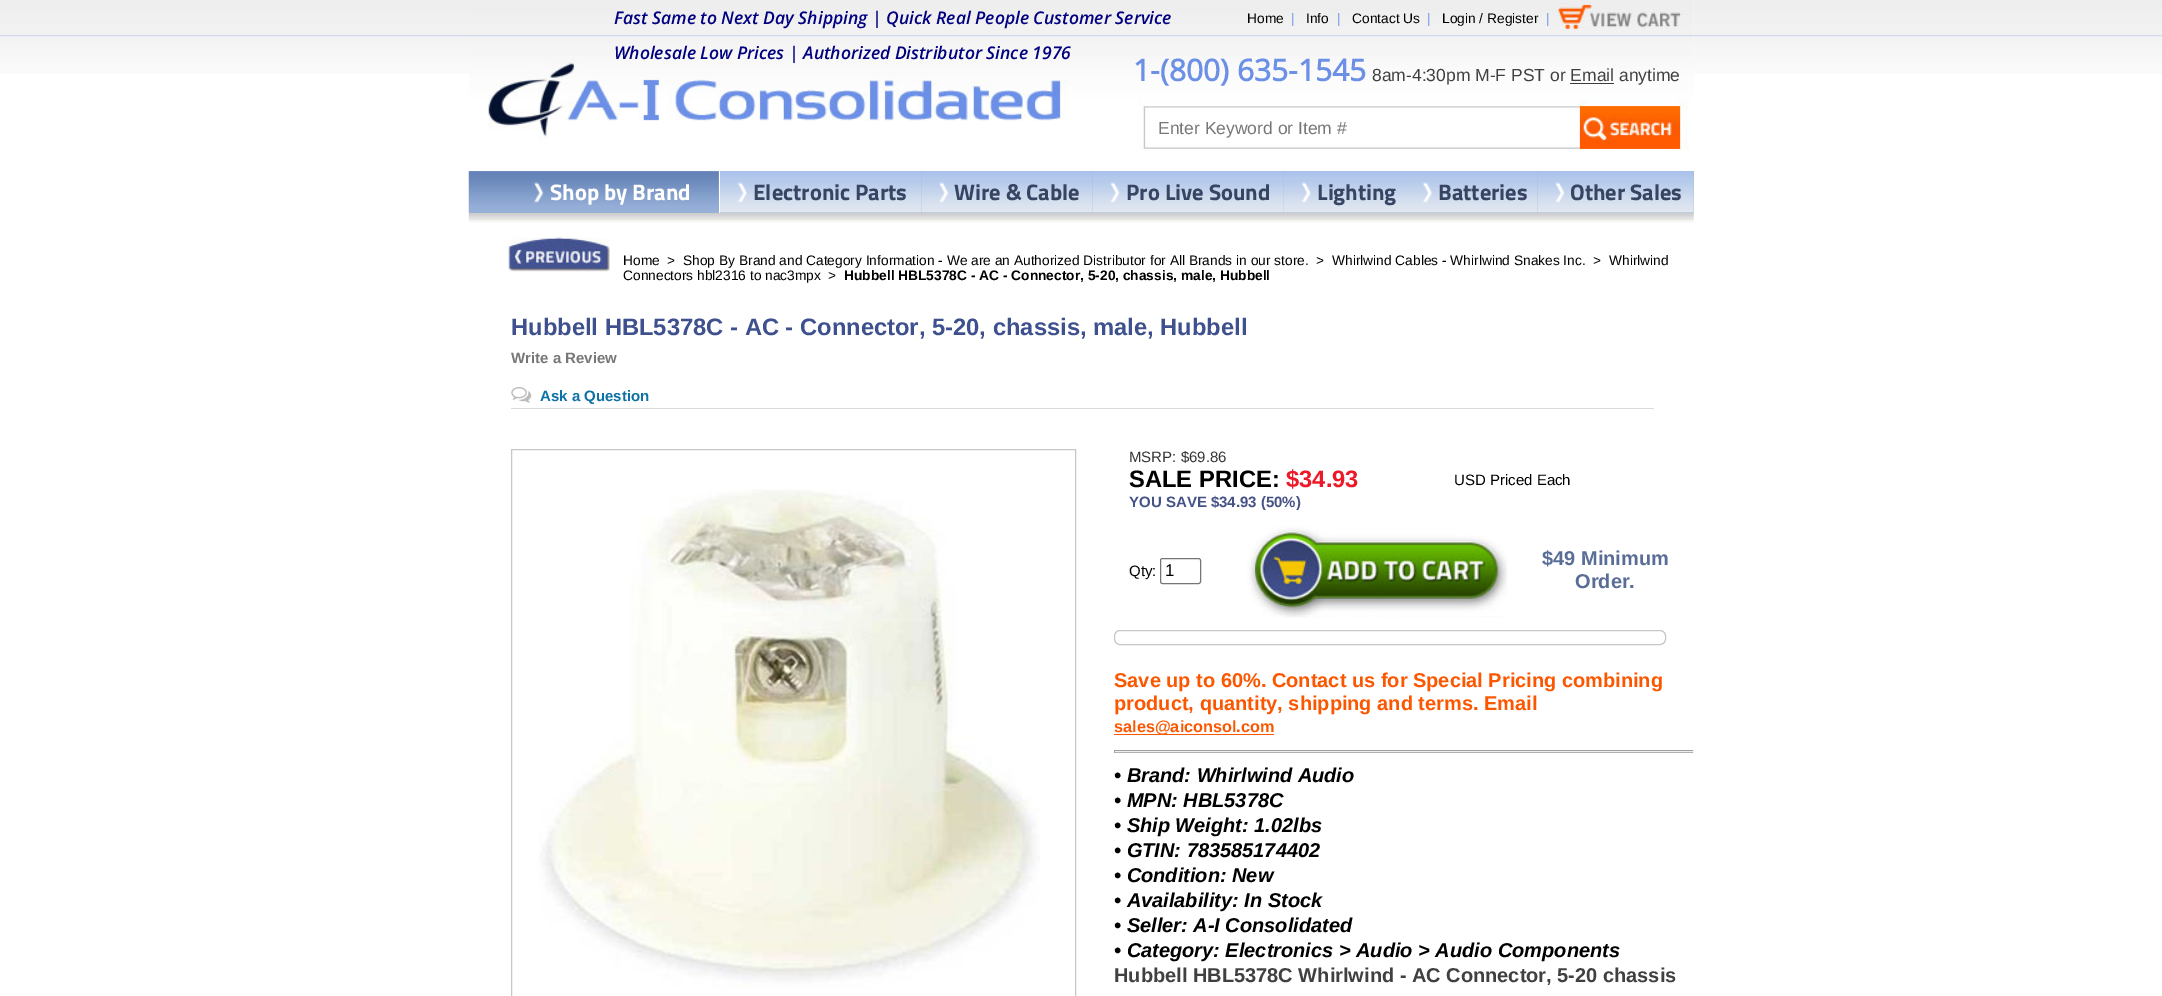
%!PS
<< /PageSize [2162 996] >> setpagedevice
/st/stroke load def
/co { dup -16 bitshift 255 div exch dup -8 bitshift 255 and 255 div exch 255 and 255 div setrgbcolor } def
/fn { [ exch dup neg 0 0 3 -1 roll 0 0 ] selectfont } def
/tx { co fn moveto show } def
/bx { co rectfill } def
/rr { 5 dict begin { /r /h /w /y /x } { exch def } forall
  x r add y moveto x w add y 2 copy h add r arct x w add y h add x 1 index r arct
  x y h add x y r arct x y 2 copy exch w add exch r arct closepath end } def
/im { 5 dict begin { /h /w /y /x /name } { exch def } forall
  gsave x y translate w h scale
  w h 8 [w 0 0 h 0 0] name (r) file false 3 colorimage grestore end } def
0 996 translate 1 -1 scale
4 setmiterlimit
0 0 2162 996 16#FFFFFF bx
(media/1.raw) 0 0 2162 74 im
469 0 1225 74 16#FFFFFF bx
(media/2.raw) 469 0 1225 151 im
(media/3.raw) 1580 106 100 43 im
(media/16.raw) 468 212 1226 11 im
719 212 1 1 16#FFFFFF bx
469 171 250 42 16#98B1D9 bx
(media/4.raw) 468 171 251 42 im
(media/5.raw) 533 182 11 21 im
720 171 974 42 16#98B1D9 bx
(media/6.raw) 720 171 201 42 im
(media/7.raw) 737 182 10 21 im
(media/8.raw) 921 171 172 42 im
(media/9.raw) 939 182 10 21 im
(media/10.raw) 1092 171 192 42 im
(media/11.raw) 1110 182 10 21 im
(media/12.raw) 1283 171 122 42 im
(media/13.raw) 1301 182 10 21 im
(media/14.raw) 1405 171 133 42 im
(media/7.raw) 1422 182 10 21 im
(media/15.raw) 1537 171 157 42 im
(media/11.raw) 1555 182 10 21 im
(media/17.raw) 508 237 102 35 im
511 408 1143 1 16#DBDBDB bx
(media/18.raw) 511 387 21 16 im
16#C7C7C7 co
511.5 449.5 564 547 rectstroke
(media/19.raw) 539 489 501 500 im
16#767676 co
1160.5 558.5 40 25 2 rr st
(media/20.raw) 1246 525 262 93 im
16#C7C7C7 co
1114.5 630.5 551 14 5.5 rr st
1114 734 160 1 16#FB5700 bx
1114 752 580 1 16#B2B2B2 bx
1114 750 580 1 16#9F9F9F bx
1693 750 1 3 16#EEEEEE bx
1114 751 580 1 16#EEEEEE bx
1114 750 1 3 16#9F9F9F bx
(Fast Same to Next Day Shipping | Quick Real People Customer Service) 614 24 /OpenSans-SemiBoldItalic 17.5 16#000080 tx
(Wholesale Low Prices | Authorized Distributor Since 1976) 614 59 /OpenSans-SemiBoldItalic 17.5 16#000080 tx
(Home) 1247 23 /LiberationSans-Regular 13.75 16#000000 tx
(|) 1291 23 /LiberationSans-Regular 13.75 16#6C90E6 tx
(Info) 1306 23 /LiberationSans-Regular 13.75 16#000000 tx
(|) 1337 23 /LiberationSans-Regular 13.75 16#6C90E6 tx
(Contact Us) 1352 23 /LiberationSans-Regular 13.75 16#000000 tx
(|) 1427 23 /LiberationSans-Regular 13.75 16#6C90E6 tx
(Login / Register) 1442 23 /LiberationSans-Regular 13.75 16#000000 tx
(|) 1546 23 /LiberationSans-Regular 13.75 16#6C90E6 tx
(1-\(800\) 635-1545) 1133 81 /OpenSans-Bold 30 16#6C90E6 tx
(8am-4:30pm M-F PST or Email anytime) 1372 81 /LiberationSans-Regular 17.5 16#404040 tx
1570 83 44 1 16#3D3B3C bx
(Enter Keyword or Item #) 1158 134 /LiberationSans-Regular 17.5 16#777777 tx
(Shop by Brand) 550 200 /TitilliumWeb-Bold 22.5 16#FFFFFF tx
(Electronic Parts) 753 200 /TitilliumWeb-Bold 22.5 16#374562 tx
(Wire & Cable) 954 200 /TitilliumWeb-Bold 22.5 16#374562 tx
(Pro Live Sound) 1126 200 /TitilliumWeb-Bold 22.5 16#374562 tx
(Lighting) 1317 200 /TitilliumWeb-Bold 22.5 16#374562 tx
(Batteries) 1438 200 /TitilliumWeb-Bold 22.5 16#374562 tx
(Other Sales) 1570 200 /TitilliumWeb-Bold 22.5 16#374562 tx
(Home) 623 265 /LiberationSans-Regular 13.75 16#000000 tx
(>) 667 265 /LiberationSans-Regular 13.75 16#000000 tx
(Shop By Brand and Category Information - We are an Authorized Distributor for All Brands in our store.) 683 265 /LiberationSans-Regular 13.75 16#000000 tx
(>) 1316 265 /LiberationSans-Regular 13.75 16#000000 tx
(Whirlwind Cables - Whirlwind Snakes Inc.) 1332 265 /LiberationSans-Regular 13.75 16#000000 tx
(>) 1593 265 /LiberationSans-Regular 13.75 16#000000 tx
(Whirlwind) 1609 265 /LiberationSans-Regular 13.75 16#000000 tx
(Connectors hbl2316 to nac3mpx) 623 280 /LiberationSans-Regular 13.75 16#000000 tx
(>) 828 280 /LiberationSans-Regular 13.75 16#000000 tx
(Hubbell HBL5378C - AC - Connector, 5-20, chassis, male, Hubbell) 844 280 /LiberationSans-Bold 13.75 16#000000 tx
(Hubbell HBL5378C - AC - Connector, 5-20, chassis, male, Hubbell) 511 335 /LiberationSans-Bold 23.75 16#3E508E tx
(Write a Review) 511 363 /LiberationSans-Bold 15 16#777777 tx
(Ask a Question) 540 401 /LiberationSans-Bold 15 16#0C71A5 tx
(MSRP: $69.86) 1129 462 /LiberationSans-Regular 15 16#363636 tx
(SALE PRICE:) 1129 487 /LiberationSans-Bold 23.75 16#000000 tx
($34.93) 1286 487 /LiberationSans-Bold 23.75 16#EC1928 tx
(YOU SAVE $34.93 \(50%\)) 1129 507 /LiberationSans-Bold 15 16#455286 tx
(USD Priced Each) 1454 485 /LiberationSans-Regular 15 16#000000 tx
(Qty:) 1129 576 /LiberationSans-Regular 15 16#000000 tx
(1) 1165 576 /LiberationSans-Regular 17 16#000000 tx
($49 Minimum) 1542 565 /LiberationSans-Bold 20 16#5A6D97 tx
(Order.) 1575 588 /LiberationSans-Bold 20 16#5A6D97 tx
(Save up to 60%. Contact us for Special Pricing combining) 1114 687 /LiberationSans-Bold 20 16#FB5700 tx
(product, quantity, shipping and terms. Email) 1114 710 /LiberationSans-Bold 20 16#FB5700 tx
(sales@aiconsol.com) 1114 732 /LiberationSans-Bold 16.25 16#FB5700 tx
(• Brand: Whirlwind Audio) 1114 782 /LiberationSans-BoldItalic 20 16#000000 tx
(• MPN: HBL5378C) 1114 807 /LiberationSans-BoldItalic 20 16#000000 tx
(• Ship Weight: 1.02lbs) 1114 832 /LiberationSans-BoldItalic 20 16#000000 tx
(• GTIN: 783585174402) 1114 857 /LiberationSans-BoldItalic 20 16#000000 tx
(• Condition: New) 1114 882 /LiberationSans-BoldItalic 20 16#000000 tx
(• Availability: In Stock) 1114 907 /LiberationSans-BoldItalic 20 16#000000 tx
(• Seller: A-I Consolidated) 1114 932 /LiberationSans-BoldItalic 20 16#000000 tx
(• Category: Electronics > Audio > Audio Components) 1114 957 /LiberationSans-BoldItalic 20 16#000000 tx
(Hubbell HBL5378C Whirlwind - AC Connector, 5-20 chassis) 1114 982 /LiberationSans-Bold 20 16#404040 tx
showpage
